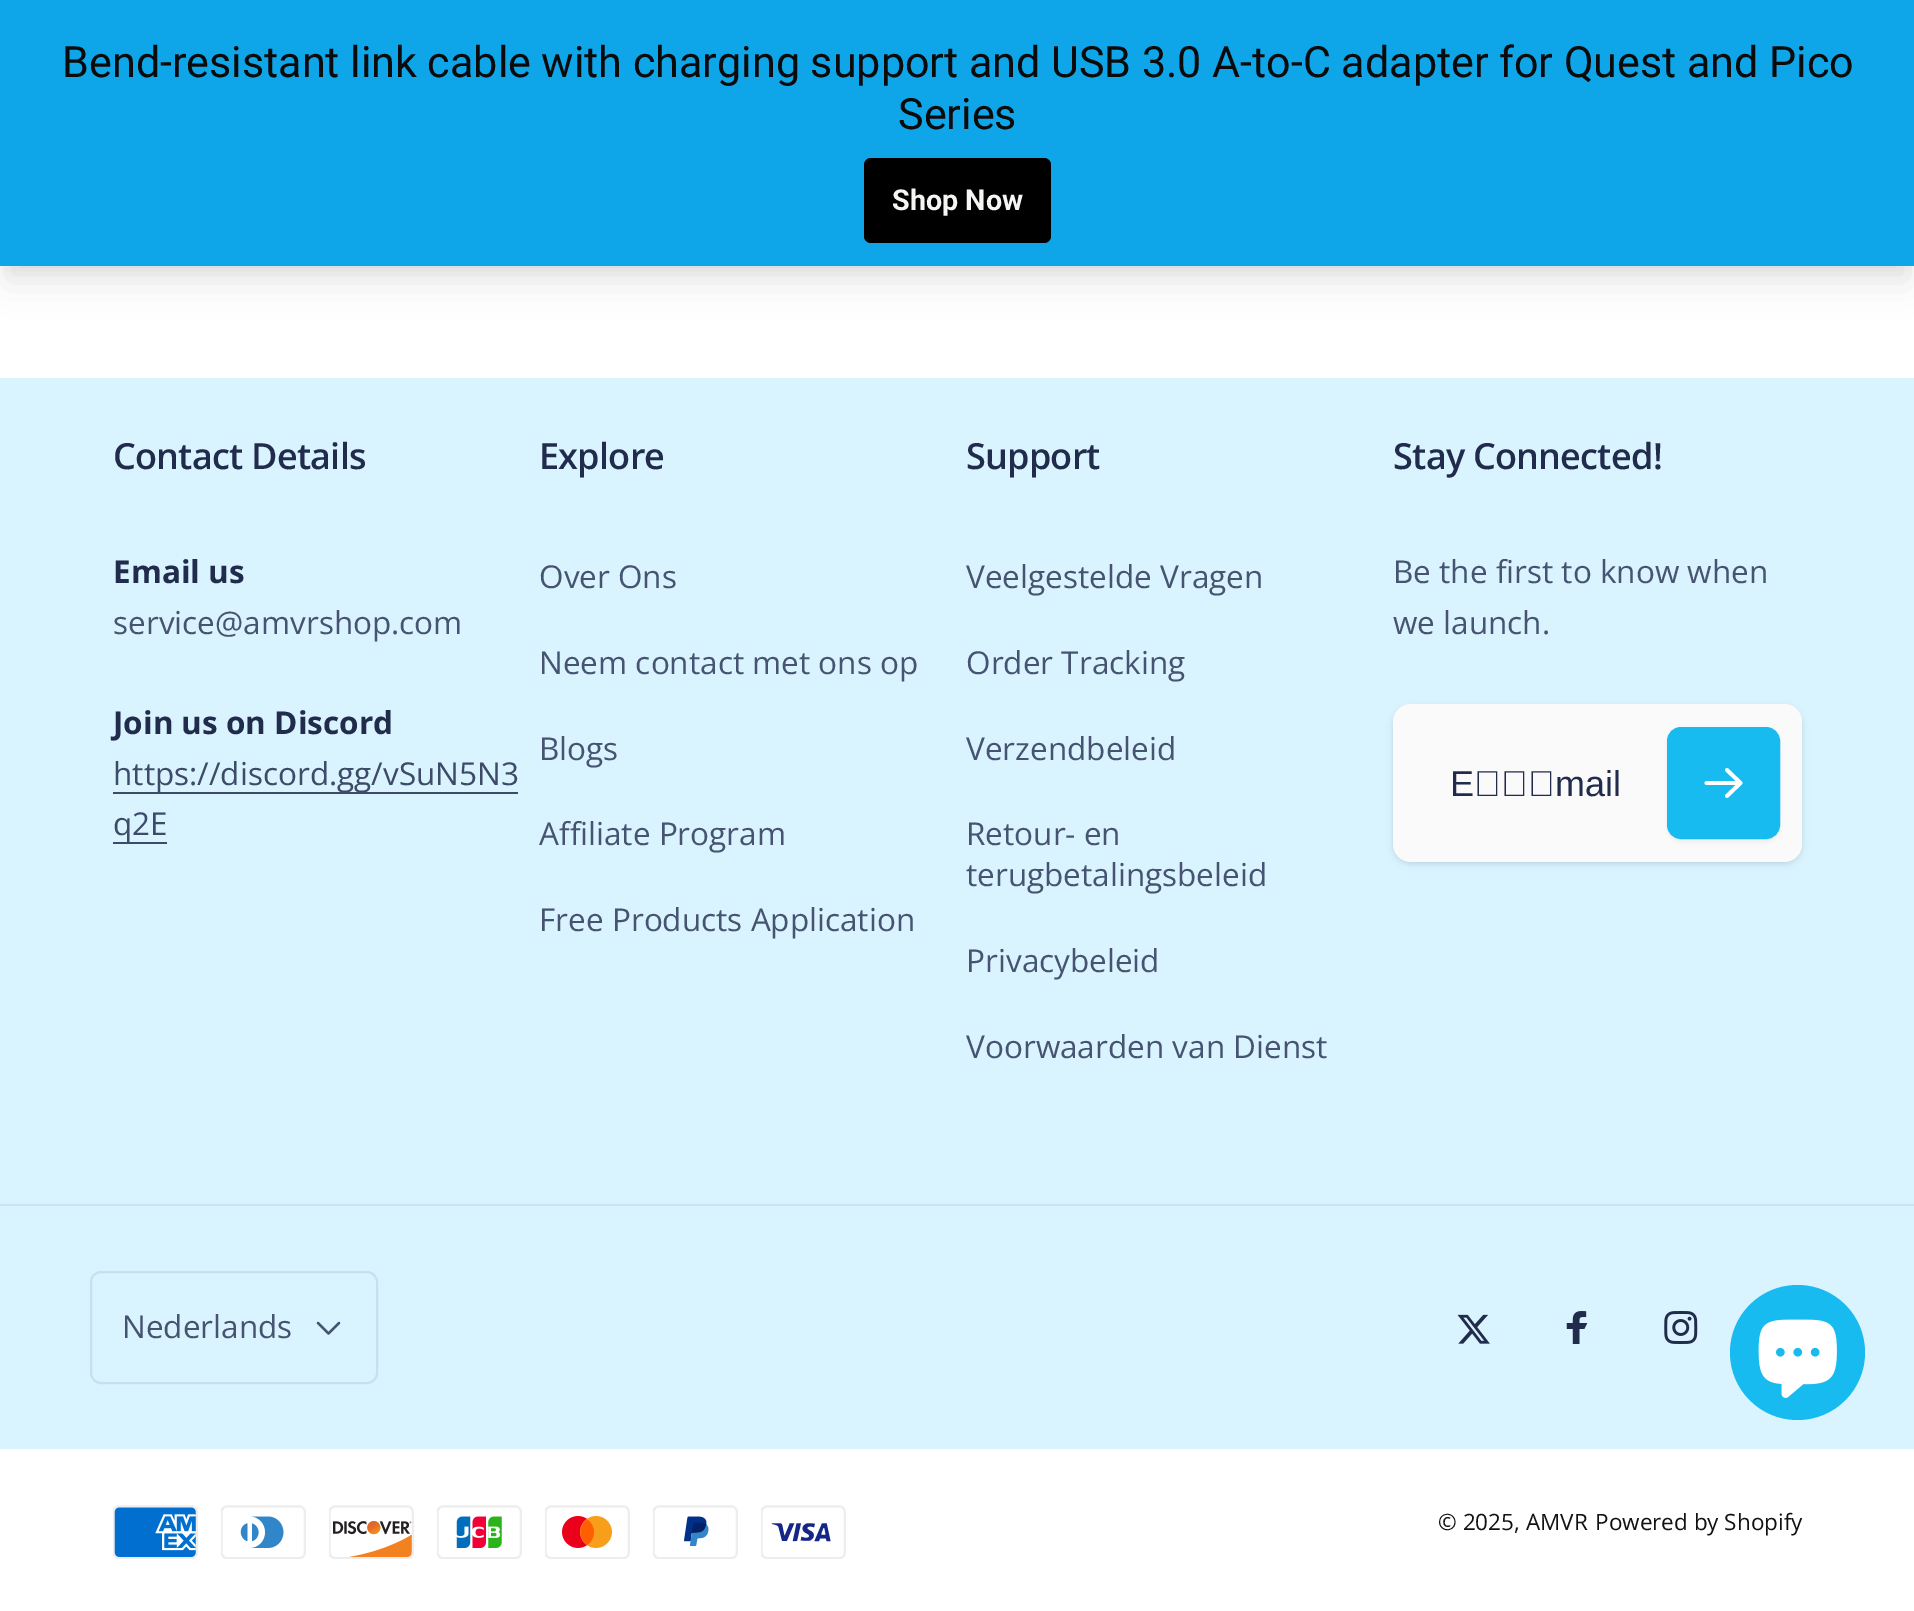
%!PS
<< /PageSize [1914 1611] /PageUsesTransparency true >> setpagedevice
/mt/moveto load def
/li/lineto load def
/fl/fill load def
/st/stroke load def
/gs/gsave load def
/gr/grestore load def
/lw/setlinewidth load def
/co { dup -16 bitshift 255 div exch dup -8 bitshift 255 and 255 div exch 255 and 255 div setrgbcolor } def
/fn { [ exch dup neg 0 0 3 -1 roll 0 0 ] selectfont } def
/tx { co fn moveto show } def
/bx { co rectfill } def
/al { dup .setfillconstantalpha .setstrokeconstantalpha } def
/ci { newpath 0 360 arc closepath } def
/rr { 5 dict begin { /r /h /w /y /x } { exch def } forall
  x r add y moveto x w add y 2 copy h add r arct x w add y h add x 1 index r arct
  x y h add x y r arct x y 2 copy exch w add exch r arct closepath end } def
/sh { 12 dict begin { /a /b /q /h /w /y /x } { exch def } forall gsave /was 0 def
  9 -2 -9 { dup b mul 4 div /e exch def 1 sub .425 mul 2.718 exch exp 1 add a .99 .min exch div /now exch def
    1 1 now sub 1 was sub div sub al /was now def
    w h .min e 2 mul add 0 gt { x e sub y e sub w e 2 mul add h e 2 mul add
      q e add b .6 mul add w h .min 2 div e add .min 0 .max rr fill } if } for grestore end } def
/im { 5 dict begin { /h /w /y /x /name } { exch def } forall
  gsave x y translate w h scale
  w h 8 [w 0 0 h 0 0] name (r) file false 3 colorimage grestore end } def
0 .pushpdf14devicefilter
0 1611 translate 1 -1 scale
4 setmiterlimit
0 0 1914 1611 16#FFFFFF bx
16#000000 co
5 14 1905 256 0 7 .05 sh
7 29 1901 252 0 17 .1 sh
0 0 1914 266 16#0EA5E9 bx
16#000000 co
864 158 187 85 7 rr fl
0 378 1914 1071 16#DAF4FF bx
113 792 405 2 16#3D4A68 bx
113 842 54 2 16#3D4A68 bx
16#212C4D co
1393 707 409 157 18 3.5 .1 sh
1393 707 409 157 18 2 .06 sh
16#FAFAFA co
1393 704 409 158 18 rr fl
16#212C4D co
1667 729 113 113 14 2 .05 sh
16#17BBEF co
1668 728 111 110 13 rr gs fl gr
2 lw
st
16#FFFFFF co
3.8 lw
1 setlinecap
1 setlinejoin
1727 770 mt 1740.5 783 li 1740.5 783 mt 1727 796 li 1740.5 783 mt 1706.5 783 li st
0 1204 1914 2 16#CBE4F1 bx
16#C8E0ED co
2 lw
0 setlinecap
0 setlinejoin
91 1272 286 111 10 rr st
16#465471 co
2.2 lw
1 setlinecap
1 setlinejoin
339 1323 mt 328.5 1333.5 li 318 1323 li st
(media/1.raw) 1457 1314 33 30 im
(media/2.raw) 1566 1311 22 33 im
(media/3.raw) 1664 1311 34 33 im
(media/4.raw) 113 1505 85 54 im
(media/5.raw) 221 1505 85 54 im
(media/6.raw) 329 1505 85 54 im
(media/7.raw) 437 1505 85 54 im
(media/8.raw) 545 1505 85 54 im
(media/9.raw) 653 1505 85 54 im
(media/10.raw) 761 1505 85 54 im
16#17BBEF co
1797.5 1352.5 67.5 ci fl
(media/11.raw) 1758 1319 79 79 im
/Roboto-Regular 43.1 fn
16#0B0B0B co
62 77 mt -.1 0 32 (Bend-resistant link cable with charging support and USB 3.0 A-to-C adapter for Quest and Pico) widthshow
(Series) 898 129 /Roboto-Regular 43.1 16#0B0B0B tx
(Shop Now) 892 210 /Roboto-Bold 28.75 16#F5F5F4 tx
/OpenSans-SemiBold 36 fn
16#212C4D co
113 469 mt -.75 0 (Contact Details) ashow
(Email us) 113 583 /OpenSans-Bold 31.5 16#212C4D tx
(service@amvrshop.com) 113 634 /OpenSans-Regular 31.5 16#465471 tx
(Join us on Discord) 113 734 /OpenSans-Bold 31.5 16#212C4D tx
(https://discord.gg/vSuN5N3) 113 785 /OpenSans-Regular 31.5 16#3D4A68 tx
(q2E) 113 835 /OpenSans-Regular 31.5 16#3D4A68 tx
/OpenSans-SemiBold 36 fn
16#212C4D co
539 469 mt -.75 0 (Explore) ashow
(Over Ons) 539 588 /OpenSans-Regular 31.5 16#465471 tx
(Neem contact met ons op) 539 674 /OpenSans-Regular 31.5 16#465471 tx
(Blogs) 539 760 /OpenSans-Regular 31.5 16#465471 tx
(Affiliate Program) 539 845 /OpenSans-Regular 31.5 16#465471 tx
(Free Products Application) 539 931 /OpenSans-Regular 31.5 16#465471 tx
/OpenSans-SemiBold 36 fn
16#212C4D co
966 469 mt -.75 0 (Support) ashow
(Veelgestelde Vragen) 966 588 /OpenSans-Regular 31.5 16#465471 tx
(Order Tracking) 966 674 /OpenSans-Regular 31.5 16#465471 tx
(Verzendbeleid) 966 760 /OpenSans-Regular 31.5 16#465471 tx
(Retour- en) 966 845 /OpenSans-Regular 31.5 16#465471 tx
(terugbetalingsbeleid) 966 886 /OpenSans-Regular 31.5 16#465471 tx
(Privacybeleid) 966 972 /OpenSans-Regular 31.5 16#465471 tx
(Voorwaarden van Dienst) 966 1058 /OpenSans-Regular 31.5 16#465471 tx
/OpenSans-SemiBold 36 fn
16#212C4D co
1393 469 mt -.75 0 (Stay Connected!) ashow
(Be the first to know when) 1393 583 /OpenSans-Regular 31.5 16#465471 tx
(we launch.) 1393 634 /OpenSans-Regular 31.5 16#465471 tx
(E‑mail) 1450 796 /LiberationSans-Regular 36 16#212C4D tx
(Nederlands) 122 1338 /OpenSans-Regular 31.5 16#465471 tx
(© 2025, AMVR) 1438 1530 /OpenSans-Regular 22.5 16#121212 tx
(Powered by Shopify) 1595 1530 /OpenSans-Regular 22.5 16#121212 tx
.poppdf14devicefilter showpage
